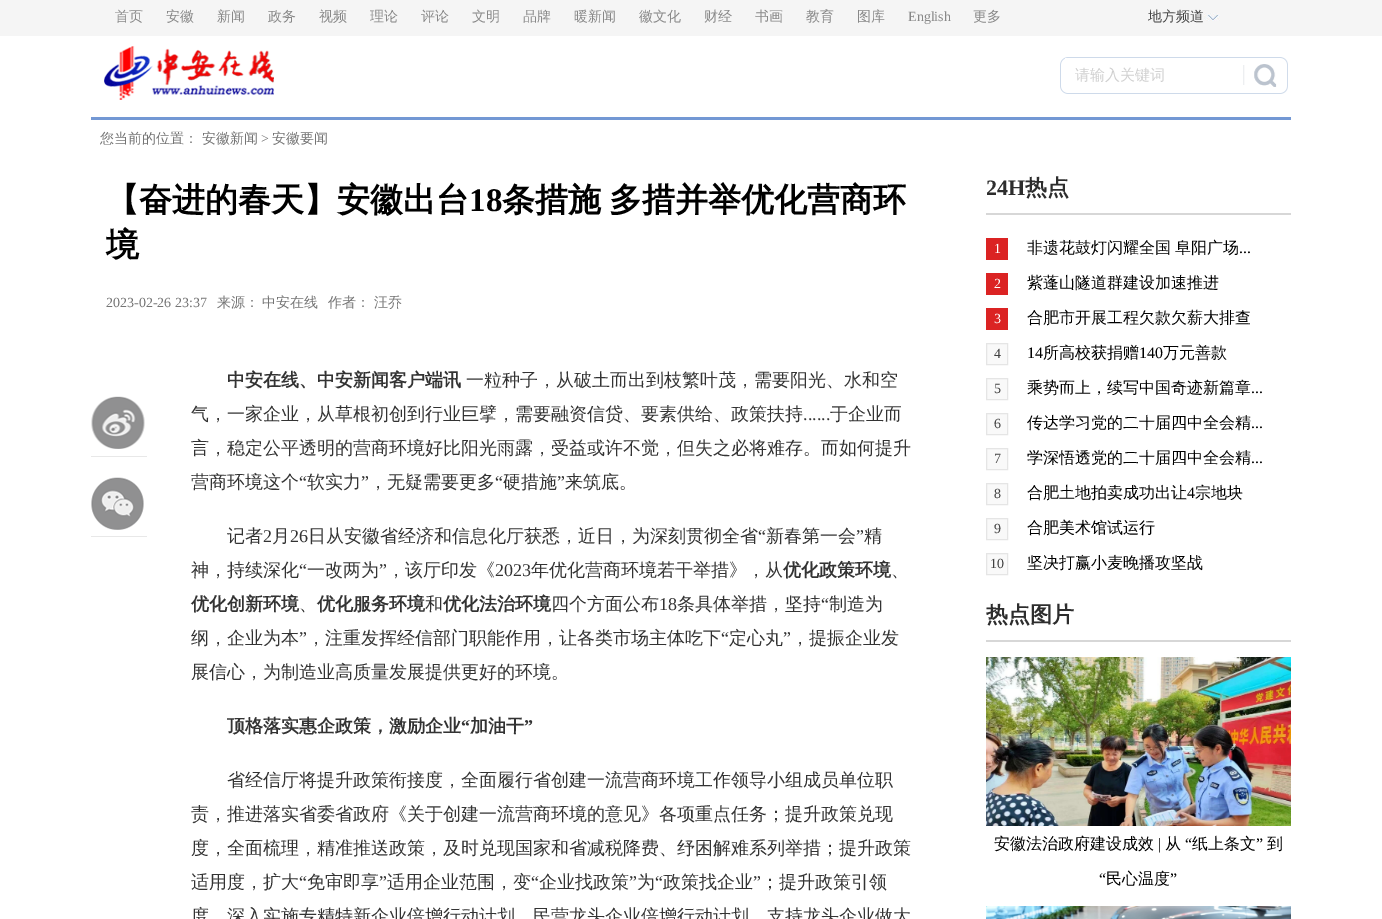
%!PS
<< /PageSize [1382 919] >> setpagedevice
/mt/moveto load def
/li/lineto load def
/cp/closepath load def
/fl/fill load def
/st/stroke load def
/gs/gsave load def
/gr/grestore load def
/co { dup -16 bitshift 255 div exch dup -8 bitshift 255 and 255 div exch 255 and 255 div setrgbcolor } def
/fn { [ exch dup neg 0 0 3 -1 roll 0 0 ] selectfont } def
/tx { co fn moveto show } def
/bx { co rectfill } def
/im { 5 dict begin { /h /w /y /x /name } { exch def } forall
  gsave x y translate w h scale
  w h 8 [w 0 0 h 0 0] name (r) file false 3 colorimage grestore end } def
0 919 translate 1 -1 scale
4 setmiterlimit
0 0 1382 919 16#FFFFFF bx
0 0 1382 36 16#F5F5F5 bx
(media/1.raw) 1204 13 16 8 im
(media/2.raw) 104 46 170 54 im
(media/3.raw) 1060 57 228 37 im
1065 58 2 1 16#FFFFFF bx
91 117 1200 3 16#7398D4 bx
(media/4.raw) 91 396 56 61 im
(media/5.raw) 91 477 56 60 im
986 213 305 2 16#D7D7D7 bx
986 238 22 22 16#DB2323 bx
986 273 22 22 16#DB2323 bx
986 308 22 22 16#DB2323 bx
16#F9F9F9 co
986.5 343.5 mt 1007.5 343.5 li 1007.5 364.5 li 986.5 364.5 li cp gs fl gr
16#E5E5E5 co
st
16#F9F9F9 co
986.5 378.5 mt 1007.5 378.5 li 1007.5 399.5 li 986.5 399.5 li cp gs fl gr
16#E5E5E5 co
st
16#F9F9F9 co
986.5 413.5 mt 1007.5 413.5 li 1007.5 434.5 li 986.5 434.5 li cp gs fl gr
16#E5E5E5 co
st
16#F9F9F9 co
986.5 448.5 mt 1007.5 448.5 li 1007.5 469.5 li 986.5 469.5 li cp gs fl gr
16#E5E5E5 co
st
16#F9F9F9 co
986.5 483.5 mt 1007.5 483.5 li 1007.5 504.5 li 986.5 504.5 li cp gs fl gr
16#E5E5E5 co
st
16#F9F9F9 co
986.5 518.5 mt 1007.5 518.5 li 1007.5 539.5 li 986.5 539.5 li cp gs fl gr
16#E5E5E5 co
st
16#F9F9F9 co
986.5 553.5 mt 1007.5 553.5 li 1007.5 574.5 li 986.5 574.5 li cp gs fl gr
16#E5E5E5 co
st
986 640 305 2 16#D7D7D7 bx
(media/6.raw) 986 657 305 169 im
(media/7.raw) 986 906 305 13 im
(首页) 115 21 /WenQuanYiZenHei-Medium 14 16#888888 tx
(安徽) 166 21 /WenQuanYiZenHei-Medium 14 16#888888 tx
(新闻) 217 21 /WenQuanYiZenHei-Medium 14 16#888888 tx
(政务) 268 21 /WenQuanYiZenHei-Medium 14 16#888888 tx
(视频) 319 21 /WenQuanYiZenHei-Medium 14 16#888888 tx
(理论) 370 21 /WenQuanYiZenHei-Medium 14 16#888888 tx
(评论) 421 21 /WenQuanYiZenHei-Medium 14 16#888888 tx
(文明) 472 21 /WenQuanYiZenHei-Medium 14 16#888888 tx
(品牌) 523 21 /WenQuanYiZenHei-Medium 14 16#888888 tx
(暖新闻) 574 21 /WenQuanYiZenHei-Medium 14 16#888888 tx
(徽文化) 639 21 /WenQuanYiZenHei-Medium 14 16#888888 tx
(财经) 704 21 /WenQuanYiZenHei-Medium 14 16#888888 tx
(书画) 755 21 /WenQuanYiZenHei-Medium 14 16#888888 tx
(教育) 806 21 /WenQuanYiZenHei-Medium 14 16#888888 tx
(图库) 857 21 /WenQuanYiZenHei-Medium 14 16#888888 tx
(English) 908 21 /LiberationSerif-Regular 14 16#888888 tx
(更多) 973 21 /WenQuanYiZenHei-Medium 14 16#888888 tx
(地方频道) 1148 21 /WenQuanYiZenHei-Medium 14 16#474747 tx
(请输入关键词) 1075 80 /WenQuanYiZenHei-Medium 15 16#D0D0D0 tx
(您当前的位置：) 100 143 /WenQuanYiZenHei-Medium 14 16#747474 tx
(安徽新闻) 202 143 /WenQuanYiZenHei-Medium 14 16#747474 tx
(>) 261 143 /LiberationSerif-Regular 14 16#747474 tx
(安徽要闻) 272 143 /WenQuanYiZenHei-Medium 14 16#747474 tx
(【奋进的春天】安徽出台) 106 211 /WenQuanYiZenHei-Bold 33 16#000000 tx
(18) 469 211 /LiberationSerif-Bold 33 16#000000 tx
/WenQuanYiZenHei-Bold 33 fn
502 211 mt -2 0 32 (条措施 多措并举优化营商环) widthshow
(境) 106 256 /WenQuanYiZenHei-Bold 33 16#000000 tx
(2023-02-26 23:37) 106 307 /LiberationSerif-Regular 14 16#747474 tx
(来源：) 217 307 /WenQuanYiZenHei-Medium 14 16#747474 tx
(中安在线) 262 307 /WenQuanYiZenHei-Medium 14 16#747474 tx
(作者：) 328 307 /WenQuanYiZenHei-Medium 14 16#747474 tx
(汪乔) 374 307 /WenQuanYiZenHei-Medium 14 16#747474 tx
(中安在线、中安新闻客户端讯) 227 386 /WenQuanYiZenHei-Bold 18 16#333333 tx
(一粒种子，从破土而出到枝繁叶茂，需要阳光、水和空) 466 386 /WenQuanYiZenHei-Medium 18 16#333333 tx
(气，一家企业，从草根初创到行业巨擘，需要融资信贷、要素供给、政策扶持) 191 420 /WenQuanYiZenHei-Medium 18 16#333333 tx
(......) 803 420 /LiberationSerif-Regular 18 16#333333 tx
(于企业而) 830 420 /WenQuanYiZenHei-Medium 18 16#333333 tx
(言，稳定公平透明的营商环境好比阳光雨露，受益或许不觉，但失之必将难存。而如何提升) 191 454 /WenQuanYiZenHei-Medium 18 16#333333 tx
(营商环境这个) 191 488 /WenQuanYiZenHei-Medium 18 16#333333 tx
(“) 299 488 /LiberationSerif-Regular 18 16#333333 tx
(软实力) 307 488 /WenQuanYiZenHei-Medium 18 16#333333 tx
(”) 361 488 /LiberationSerif-Regular 18 16#333333 tx
(，无疑需要更多) 369 488 /WenQuanYiZenHei-Medium 18 16#333333 tx
(“) 495 488 /LiberationSerif-Regular 18 16#333333 tx
(硬措施) 503 488 /WenQuanYiZenHei-Medium 18 16#333333 tx
(”) 557 488 /LiberationSerif-Regular 18 16#333333 tx
(来筑底。) 565 488 /WenQuanYiZenHei-Medium 18 16#333333 tx
(记者) 227 542 /WenQuanYiZenHei-Medium 18 16#333333 tx
(2) 263 542 /LiberationSerif-Regular 18 16#333333 tx
(月) 272 542 /WenQuanYiZenHei-Medium 18 16#333333 tx
(26) 290 542 /LiberationSerif-Regular 18 16#333333 tx
(日从安徽省经济和信息化厅获悉，近日，为深刻贯彻全省) 308 542 /WenQuanYiZenHei-Medium 18 16#333333 tx
(“) 758 542 /LiberationSerif-Regular 18 16#333333 tx
(新春第一会) 766 542 /WenQuanYiZenHei-Medium 18 16#333333 tx
(”) 856 542 /LiberationSerif-Regular 18 16#333333 tx
(精) 864 542 /WenQuanYiZenHei-Medium 18 16#333333 tx
(神，持续深化) 191 576 /WenQuanYiZenHei-Medium 18 16#333333 tx
(“) 299 576 /LiberationSerif-Regular 18 16#333333 tx
(一改两为) 307 576 /WenQuanYiZenHei-Medium 18 16#333333 tx
(”) 379 576 /LiberationSerif-Regular 18 16#333333 tx
(，该厅印发《) 387 576 /WenQuanYiZenHei-Medium 18 16#333333 tx
(2023) 495 576 /LiberationSerif-Regular 18 16#333333 tx
(年优化营商环境若干举措》，从) 531 576 /WenQuanYiZenHei-Medium 18 16#333333 tx
(优化政策环境) 783 576 /WenQuanYiZenHei-Bold 18 16#333333 tx
(、) 891 576 /WenQuanYiZenHei-Medium 18 16#333333 tx
(优化创新环境) 191 610 /WenQuanYiZenHei-Bold 18 16#333333 tx
(优化服务环境) 317 610 /WenQuanYiZenHei-Bold 18 16#333333 tx
(和) 425 610 /WenQuanYiZenHei-Medium 18 16#333333 tx
(优化法治环境) 443 610 /WenQuanYiZenHei-Bold 18 16#333333 tx
(四个方面公布) 551 610 /WenQuanYiZenHei-Medium 18 16#333333 tx
(18) 659 610 /LiberationSerif-Regular 18 16#333333 tx
(条具体举措，坚持) 677 610 /WenQuanYiZenHei-Medium 18 16#333333 tx
(“) 821 610 /LiberationSerif-Regular 18 16#333333 tx
(制造为) 829 610 /WenQuanYiZenHei-Medium 18 16#333333 tx
(、) 299 610 /WenQuanYiZenHei-Medium 18 16#333333 tx
(纲，企业为本) 191 644 /WenQuanYiZenHei-Medium 18 16#333333 tx
(”) 299 644 /LiberationSerif-Regular 18 16#333333 tx
(，注重发挥经信部门职能作用，让各类市场主体吃下) 307 644 /WenQuanYiZenHei-Medium 18 16#333333 tx
(“) 721 644 /LiberationSerif-Regular 18 16#333333 tx
(定心丸) 729 644 /WenQuanYiZenHei-Medium 18 16#333333 tx
(”) 783 644 /LiberationSerif-Regular 18 16#333333 tx
(，提振企业发) 791 644 /WenQuanYiZenHei-Medium 18 16#333333 tx
(展信心，为制造业高质量发展提供更好的环境。) 191 678 /WenQuanYiZenHei-Medium 18 16#333333 tx
(顶格落实惠企政策，激励企业) 227 732 /WenQuanYiZenHei-Bold 18 16#333333 tx
(“) 461 732 /LiberationSerif-Bold 18 16#333333 tx
(加油干) 470 732 /WenQuanYiZenHei-Bold 18 16#333333 tx
(”) 524 732 /LiberationSerif-Bold 18 16#333333 tx
(省经信厅将提升政策衔接度，全面履行省创建一流营商环境工作领导小组成员单位职) 227 786 /WenQuanYiZenHei-Medium 18 16#333333 tx
(责，推进落实省委省政府《关于创建一流营商环境的意见》各项重点任务；提升政策兑现) 191 820 /WenQuanYiZenHei-Medium 18 16#333333 tx
(度，全面梳理，精准推送政策，及时兑现国家和省减税降费、纾困解难系列举措；提升政策) 191 854 /WenQuanYiZenHei-Medium 18 16#333333 tx
(适用度，扩大) 191 888 /WenQuanYiZenHei-Medium 18 16#333333 tx
(“) 299 888 /LiberationSerif-Regular 18 16#333333 tx
(免审即享) 307 888 /WenQuanYiZenHei-Medium 18 16#333333 tx
(”) 379 888 /LiberationSerif-Regular 18 16#333333 tx
(适用企业范围，变) 387 888 /WenQuanYiZenHei-Medium 18 16#333333 tx
(“) 531 888 /LiberationSerif-Regular 18 16#333333 tx
(企业找政策) 539 888 /WenQuanYiZenHei-Medium 18 16#333333 tx
(”) 629 888 /LiberationSerif-Regular 18 16#333333 tx
(为) 637 888 /WenQuanYiZenHei-Medium 18 16#333333 tx
(“) 655 888 /LiberationSerif-Regular 18 16#333333 tx
(政策找企业) 663 888 /WenQuanYiZenHei-Medium 18 16#333333 tx
(”) 753 888 /LiberationSerif-Regular 18 16#333333 tx
(；提升政策引领) 761 888 /WenQuanYiZenHei-Medium 18 16#333333 tx
(度，深入实施专精特新企业倍增行动计划、民营龙头企业倍增行动计划，支持龙头企业做大) 191 922 /WenQuanYiZenHei-Medium 18 16#333333 tx
(24H) 986 195 /LiberationSerif-Bold 22 16#2D2D2D tx
(热点) 1025 195 /WenQuanYiZenHei-Bold 22 16#2D2D2D tx
(1) 994 253 /LiberationSerif-Regular 14 16#FFFFFF tx
(非遗花鼓灯闪耀全国) 1027 253 /WenQuanYiZenHei-Medium 16 16#000000 tx
(阜阳广场) 1175 253 /WenQuanYiZenHei-Medium 16 16#000000 tx
(...) 1239 253 /LiberationSerif-Regular 16 16#000000 tx
(2) 994 288 /LiberationSerif-Regular 14 16#FFFFFF tx
(紫蓬山隧道群建设加速推进) 1027 288 /WenQuanYiZenHei-Medium 16 16#000000 tx
(3) 994 323 /LiberationSerif-Regular 14 16#FFFFFF tx
(合肥市开展工程欠款欠薪大排查) 1027 323 /WenQuanYiZenHei-Medium 16 16#000000 tx
(4) 994 358 /LiberationSerif-Regular 14 16#414141 tx
(14) 1027 358 /LiberationSerif-Regular 16 16#000000 tx
(所高校获捐赠) 1043 358 /WenQuanYiZenHei-Medium 16 16#000000 tx
(140) 1139 358 /LiberationSerif-Regular 16 16#000000 tx
(万元善款) 1163 358 /WenQuanYiZenHei-Medium 16 16#000000 tx
(5) 994 393 /LiberationSerif-Regular 14 16#414141 tx
(乘势而上，续写中国奇迹新篇章) 1027 393 /WenQuanYiZenHei-Medium 16 16#000000 tx
(...) 1251 393 /LiberationSerif-Regular 16 16#000000 tx
(6) 994 428 /LiberationSerif-Regular 14 16#414141 tx
(传达学习党的二十届四中全会精) 1027 428 /WenQuanYiZenHei-Medium 16 16#000000 tx
(...) 1251 428 /LiberationSerif-Regular 16 16#000000 tx
(7) 994 463 /LiberationSerif-Regular 14 16#414141 tx
(学深悟透党的二十届四中全会精) 1027 463 /WenQuanYiZenHei-Medium 16 16#000000 tx
(...) 1251 463 /LiberationSerif-Regular 16 16#000000 tx
(8) 994 498 /LiberationSerif-Regular 14 16#414141 tx
(合肥土地拍卖成功出让) 1027 498 /WenQuanYiZenHei-Medium 16 16#000000 tx
(4) 1187 498 /LiberationSerif-Regular 16 16#000000 tx
(宗地块) 1195 498 /WenQuanYiZenHei-Medium 16 16#000000 tx
(9) 994 533 /LiberationSerif-Regular 14 16#414141 tx
(合肥美术馆试运行) 1027 533 /WenQuanYiZenHei-Medium 16 16#000000 tx
(10) 990 568 /LiberationSerif-Regular 14 16#414141 tx
(坚决打赢小麦晚播攻坚战) 1027 568 /WenQuanYiZenHei-Medium 16 16#000000 tx
(热点图片) 986 622 /WenQuanYiZenHei-Bold 22 16#2D2D2D tx
(安徽法治政府建设成效) 994 849 /WenQuanYiZenHei-Medium 16 16#000000 tx
(|) 1158 849 /LiberationSerif-Regular 16 16#000000 tx
(从) 1165 849 /WenQuanYiZenHei-Medium 16 16#000000 tx
(“) 1185 849 /LiberationSerif-Regular 16 16#000000 tx
(纸上条文) 1192 849 /WenQuanYiZenHei-Medium 16 16#000000 tx
(”) 1256 849 /LiberationSerif-Regular 16 16#000000 tx
(到) 1267 849 /WenQuanYiZenHei-Medium 16 16#000000 tx
(“) 1099 884 /LiberationSerif-Regular 16 16#000000 tx
(民心温度) 1106 884 /WenQuanYiZenHei-Medium 16 16#000000 tx
(”) 1170 884 /LiberationSerif-Regular 16 16#000000 tx
showpage
